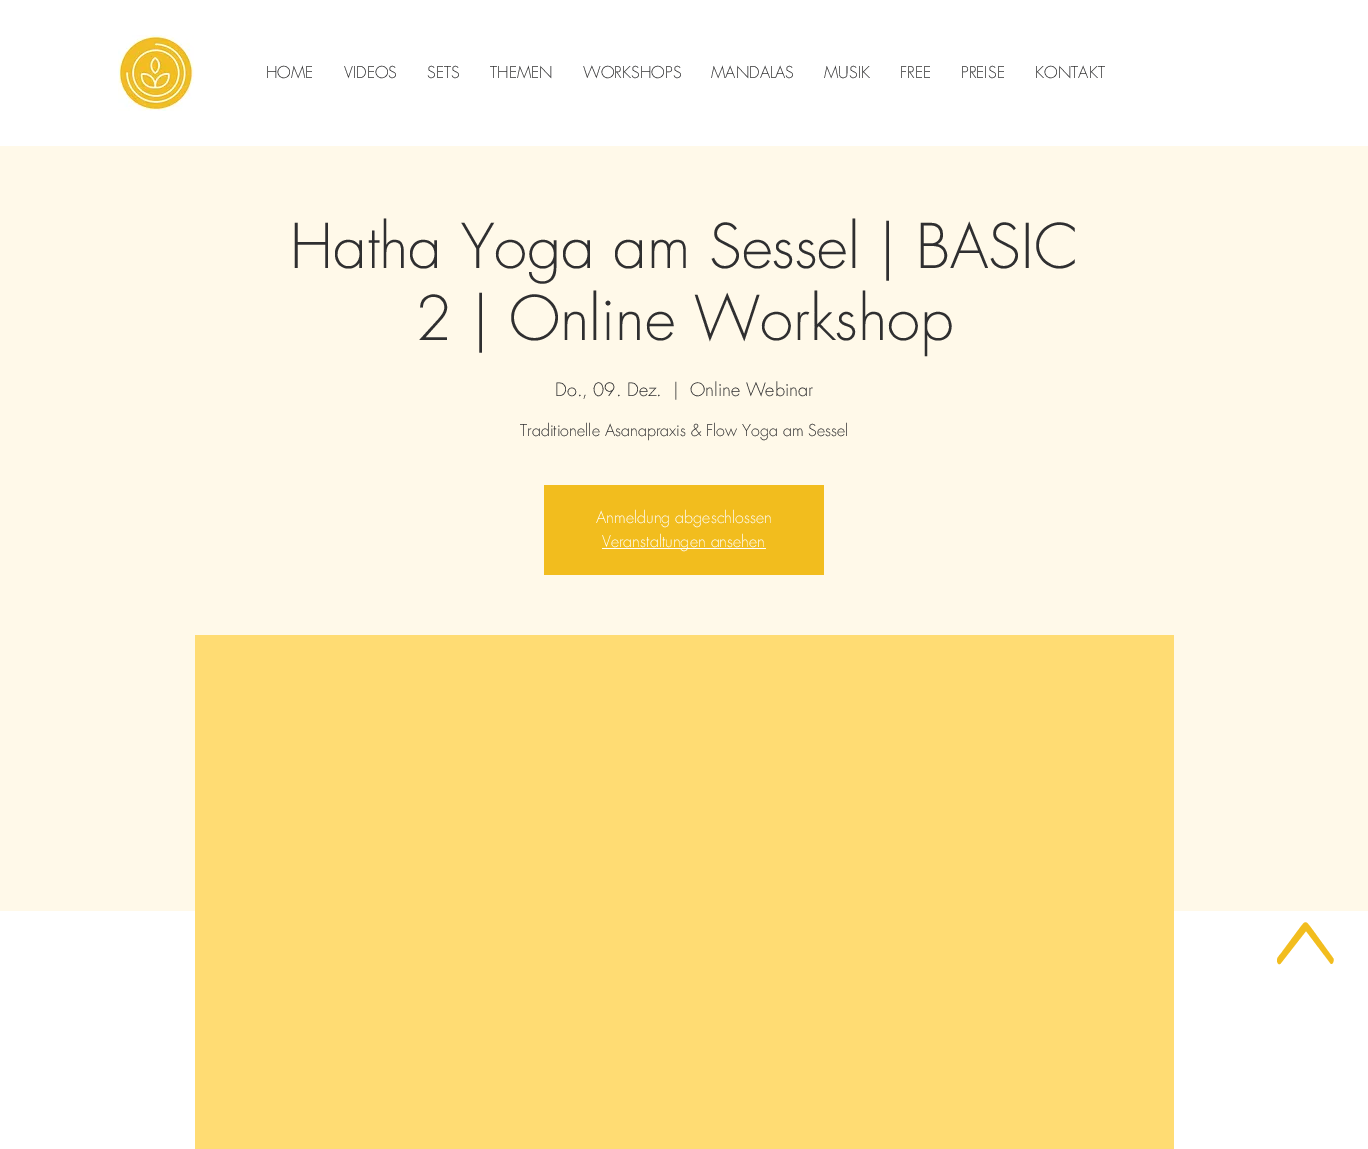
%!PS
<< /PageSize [1368 1149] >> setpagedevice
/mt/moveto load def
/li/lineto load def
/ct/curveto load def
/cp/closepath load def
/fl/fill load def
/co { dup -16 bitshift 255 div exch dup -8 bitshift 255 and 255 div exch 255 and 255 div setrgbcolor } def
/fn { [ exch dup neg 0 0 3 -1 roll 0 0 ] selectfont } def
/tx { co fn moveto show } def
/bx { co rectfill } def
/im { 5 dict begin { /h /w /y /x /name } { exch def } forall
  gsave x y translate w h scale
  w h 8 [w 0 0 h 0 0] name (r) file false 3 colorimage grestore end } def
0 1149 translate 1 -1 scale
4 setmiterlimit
0 0 1368 1149 16#FFFFFF bx
(media/1.raw) 118 35 76 76 im
0 146 1368 765 16#FFF9E9 bx
544 485 280 90 16#F2BD1E bx
602 548 164 1 16#FFFFFF bx
195 635 979 514 16#FFDC73 bx
16#F2BD1E co
1333 958 mt 1312 929 li 1305 920 1306 920 1299 929 ct 1282 952 li 1281 954 1277 957 1277 960 ct 1277 963 1279 966 1281 963 ct 1306 931 li 1331 964 li 1332 964 li 1334 962 1334 959 1333 958 ct cp fl
(HOME) 266 78 /futura-Light 16 16#2F2F30 tx
(VIDEOS) 344 78 /futura-Light 16 16#2F2F30 tx
(SETS) 427 78 /futura-Light 16 16#2F2F30 tx
(THEMEN) 490 78 /futura-Light 16 16#2F2F30 tx
(WORKSHOPS) 583 78 /futura-Light 16 16#2F2F30 tx
(MANDALAS) 711 78 /futura-Light 16 16#2F2F30 tx
(MUSIK) 824 78 /futura-Light 16 16#2F2F30 tx
(FREE) 900 78 /futura-Light 16 16#2F2F30 tx
(PREISE) 961 78 /futura-Light 16 16#2F2F30 tx
(KONTAKT) 1035 78 /futura-Light 16 16#2F2F30 tx
(Hatha Yoga am Sessel | BASIC) 290 268 /futura-Light 60 16#2F2F30 tx
(2 | Online Workshop) 415 340 /futura-Light 60 16#2F2F30 tx
(Do., 09. Dez.) 555 396 /futura-Light 18 16#2F2F30 tx
(|) 673 396 /futura-Light 18 16#2F2F30 tx
(Online Webinar) 690 396 /futura-Light 18 16#2F2F30 tx
(Traditionelle Asanapraxis & Flow Yoga am Sessel) 520 436 /futura-Light 16 16#2F2F30 tx
(Anmeldung abgeschlossen) 596 523 /futura-Light 16 16#FFFFFF tx
(Veranstaltungen ansehen) 602 547 /futura-Light 16 16#FFFFFF tx
showpage
